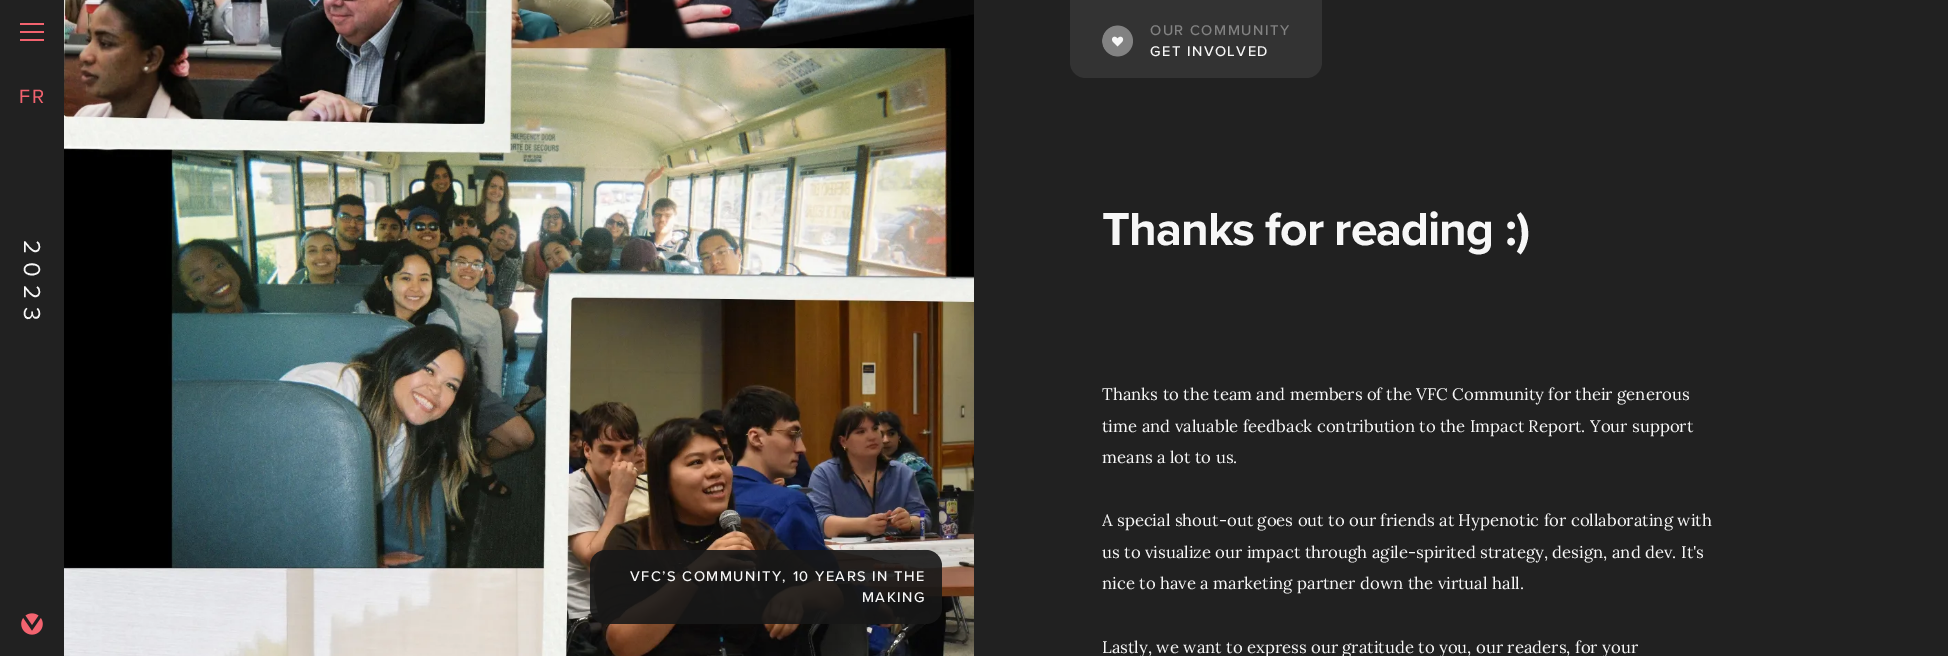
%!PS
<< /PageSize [1948 656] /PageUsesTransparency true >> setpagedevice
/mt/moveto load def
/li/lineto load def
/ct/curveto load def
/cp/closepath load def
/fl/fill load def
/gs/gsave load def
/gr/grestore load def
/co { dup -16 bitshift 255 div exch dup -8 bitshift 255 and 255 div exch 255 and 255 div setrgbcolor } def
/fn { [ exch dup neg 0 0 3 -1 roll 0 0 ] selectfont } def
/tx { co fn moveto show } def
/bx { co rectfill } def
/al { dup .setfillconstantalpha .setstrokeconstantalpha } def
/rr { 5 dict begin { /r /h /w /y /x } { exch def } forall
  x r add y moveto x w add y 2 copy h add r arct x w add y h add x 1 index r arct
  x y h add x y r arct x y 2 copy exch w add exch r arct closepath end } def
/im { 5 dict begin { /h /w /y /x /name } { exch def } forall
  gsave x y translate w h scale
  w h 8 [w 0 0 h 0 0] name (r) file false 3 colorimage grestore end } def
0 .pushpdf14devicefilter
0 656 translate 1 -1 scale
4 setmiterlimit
0 0 1948 656 16#212121 bx
(media/1.raw) 20 23 24 18 im
(media/2.raw) 21 613 22 22 im
(media/3.raw) 64 0 910 656 im
0.9 al
16#171717 co
590 550 352 74 16 rr fl
1 al
16#333333 co
1070 0 mt 1322 0 li 1322 62 li 1322 71 1315 78 1306 78 ct 1086 78 li 1077 78 1070 71 1070 62 ct cp fl
(media/4.raw) 1102 25 31 32 im
/ProximaNova-Regular 20 fn
16#F3636F co
19 103 mt 2 0 (FR) ashow
/ProximaNova-Regular 24 fn
16#F7F7F7 co
gs 24 240 translate 90 rotate 0 0 mt 8 0 (2023) ashow gr
/ProximaNova-Medium 14.6 fn
630 581 mt 1.45 0 (VFC’S COMMUNITY, 10 YEARS IN THE) ashow
862 602 mt 1.45 0 (MAKING) ashow
16#828282 co
1150 35 mt 1.45 0 (OUR COMMUNITY) ashow
16#F7F7F7 co
1150 56 mt 1.45 0 (GET INVOLVED) ashow
/ProximaNova-Bold 48 fn
1102 245 mt -1 0 (Thanks for reading :\)) ashow
(Thanks to the team and members of the VFC Community for their generous) 1102 400 /Lora-Regular 16.7 16#F7F7F7 tx
(time and valuable feedback contribution to the Impact Report. Your support) 1102 432 /Lora-Regular 16.7 16#F7F7F7 tx
(means a lot to us.) 1102 463 /Lora-Regular 16.7 16#F7F7F7 tx
(A special shout-out goes out to our friends at Hypenotic for collaborating with) 1102 526 /Lora-Regular 16.7 16#F7F7F7 tx
(us to visualize our impact through agile-spirited strategy, design, and dev. It's) 1102 558 /Lora-Regular 16.7 16#F7F7F7 tx
(nice to have a marketing partner down the virtual hall.) 1102 589 /Lora-Regular 16.7 16#F7F7F7 tx
(Lastly, we want to express our gratitude to you, our readers, for your) 1102 653 /Lora-Regular 16.7 16#F7F7F7 tx
.poppdf14devicefilter showpage
